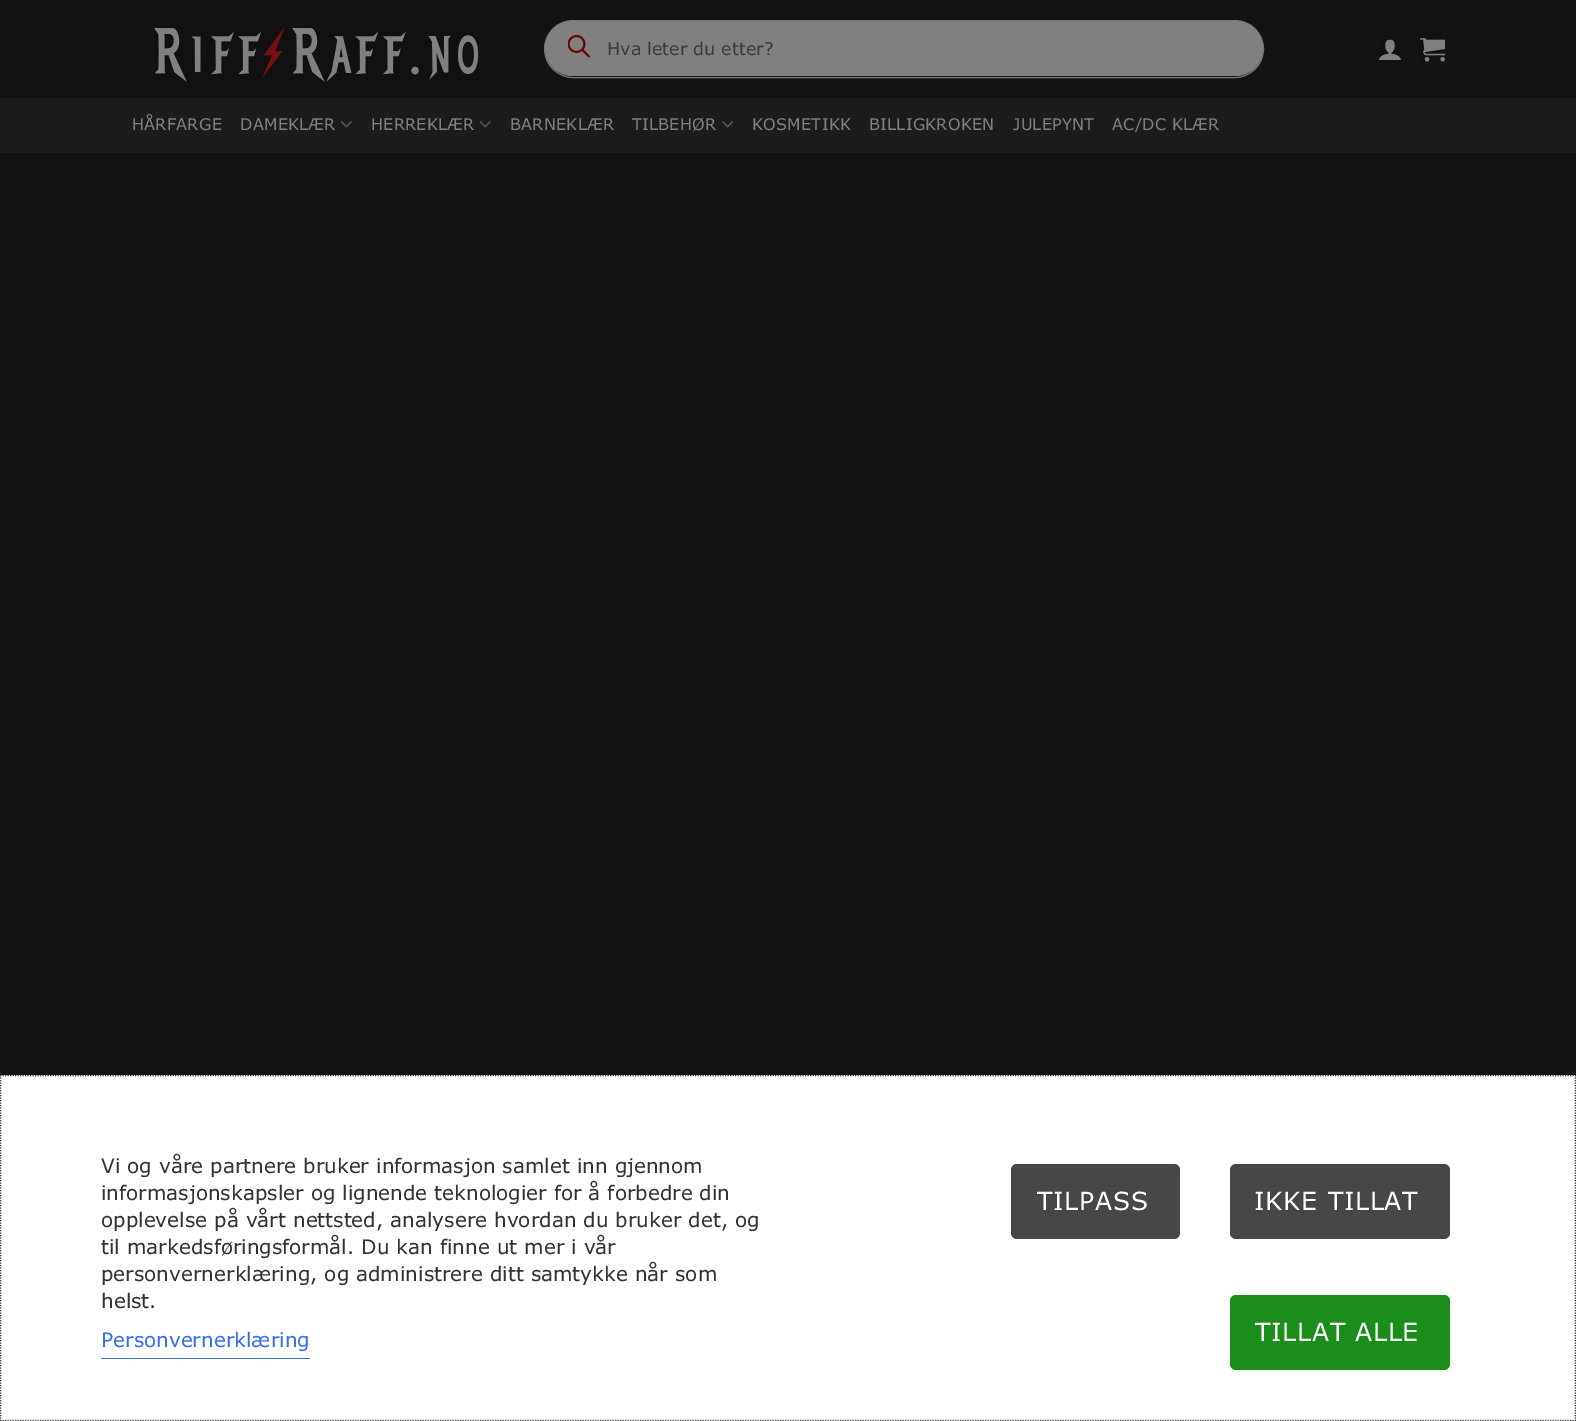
%!PS
<< /PageSize [1576 1421] >> setpagedevice
/mt/moveto load def
/li/lineto load def
/fl/fill load def
/st/stroke load def
/lw/setlinewidth load def
/co { dup -16 bitshift 255 div exch dup -8 bitshift 255 and 255 div exch 255 and 255 div setrgbcolor } def
/fn { [ exch dup neg 0 0 3 -1 roll 0 0 ] selectfont } def
/tx { co fn moveto show } def
/bx { co rectfill } def
/rr { 5 dict begin { /r /h /w /y /x } { exch def } forall
  x r add y moveto x w add y 2 copy h add r arct x w add y h add x 1 index r arct
  x y h add x y r arct x y 2 copy exch w add exch r arct closepath end } def
/im { 5 dict begin { /h /w /y /x /name } { exch def } forall
  gsave x y translate w h scale
  w h 8 [w 0 0 h 0 0] name (r) file false 3 colorimage grestore end } def
0 1421 translate 1 -1 scale
4 setmiterlimit
0 0 1576 1421 16#131313 bx
(media/1.raw) 154 26 325 56 im
16#777777 co
544.5 20.5 719 57 28.5 rr st
16#808080 co
545 21 718 55 27.5 rr fl
(media/2.raw) 568 35 22 23 im
(media/3.raw) 1379 39 22 21 im
(media/4.raw) 1420 38 25 24 im
0 98 1576 55 16#1C1C1C bx
(media/5.raw) 341 121 11 7 im
(media/6.raw) 479 121 12 7 im
(media/7.raw) 722 121 12 7 im
0 1075 1576 346 16#FFFFFF bx
16#333333 co
1.2 lw
[1.25 1.25] 0 setdash
0 1075.5 mt 1576 1075.5 li st
1575.5 1075 mt 1575.5 1421 li st
0 1420.5 mt 1576 1420.5 li st
.5 1075 mt .5 1421 li st
101 1358 209 1 16#376EF0 bx
16#474747 co
1011 1164 169 75 6 rr fl
1230 1164 220 75 6 rr fl
16#1A8D1A co
1230 1295 220 75 6 rr fl
(Hva leter du etter?) 607 55 /Verdana-Regular 17.5 16#3C3C3C tx
/Verdana-Regular 16 fn
16#808080 co
132 130 mt .25 0 (HÅRFARGE) ashow
240 130 mt .25 0 (DAMEKLÆR) ashow
371 130 mt .25 0 (HERREKLÆR) ashow
510 130 mt .25 0 (BARNEKLÆR) ashow
632 130 mt .25 0 (TILBEHØR) ashow
752 130 mt .25 0 (KOSMETIKK) ashow
869 130 mt .25 0 (BILLIGKROKEN) ashow
1013 130 mt .25 0 (JULEPYNT) ashow
1112 130 mt .25 0 (AC/DC KLÆR) ashow
(Vi og våre partnere bruker informasjon samlet inn gjennom) 101 1173 /Verdana-Regular 20 16#333333 tx
(informasjonskapsler og lignende teknologier for å forbedre din) 101 1200 /Verdana-Regular 20 16#333333 tx
(opplevelse på vårt nettsted, analysere hvordan du bruker det, og) 101 1227 /Verdana-Regular 20 16#333333 tx
(til markedsføringsformål. Du kan finne ut mer i vår) 101 1254 /Verdana-Regular 20 16#333333 tx
(personvernerklæring, og administrere ditt samtykke når som) 101 1281 /Verdana-Regular 20 16#333333 tx
(helst.) 101 1308 /Verdana-Regular 20 16#333333 tx
(Personvernerklæring) 101 1347 /Verdana-Regular 20 16#376EF0 tx
/Verdana-Regular 25 fn
16#FFFFFF co
1037 1210 mt .75 0 (TILPASS) ashow
1254 1210 mt .75 0 (IKKE TILLAT) ashow
1255 1341 mt .75 0 (TILLAT ALLE) ashow
showpage
